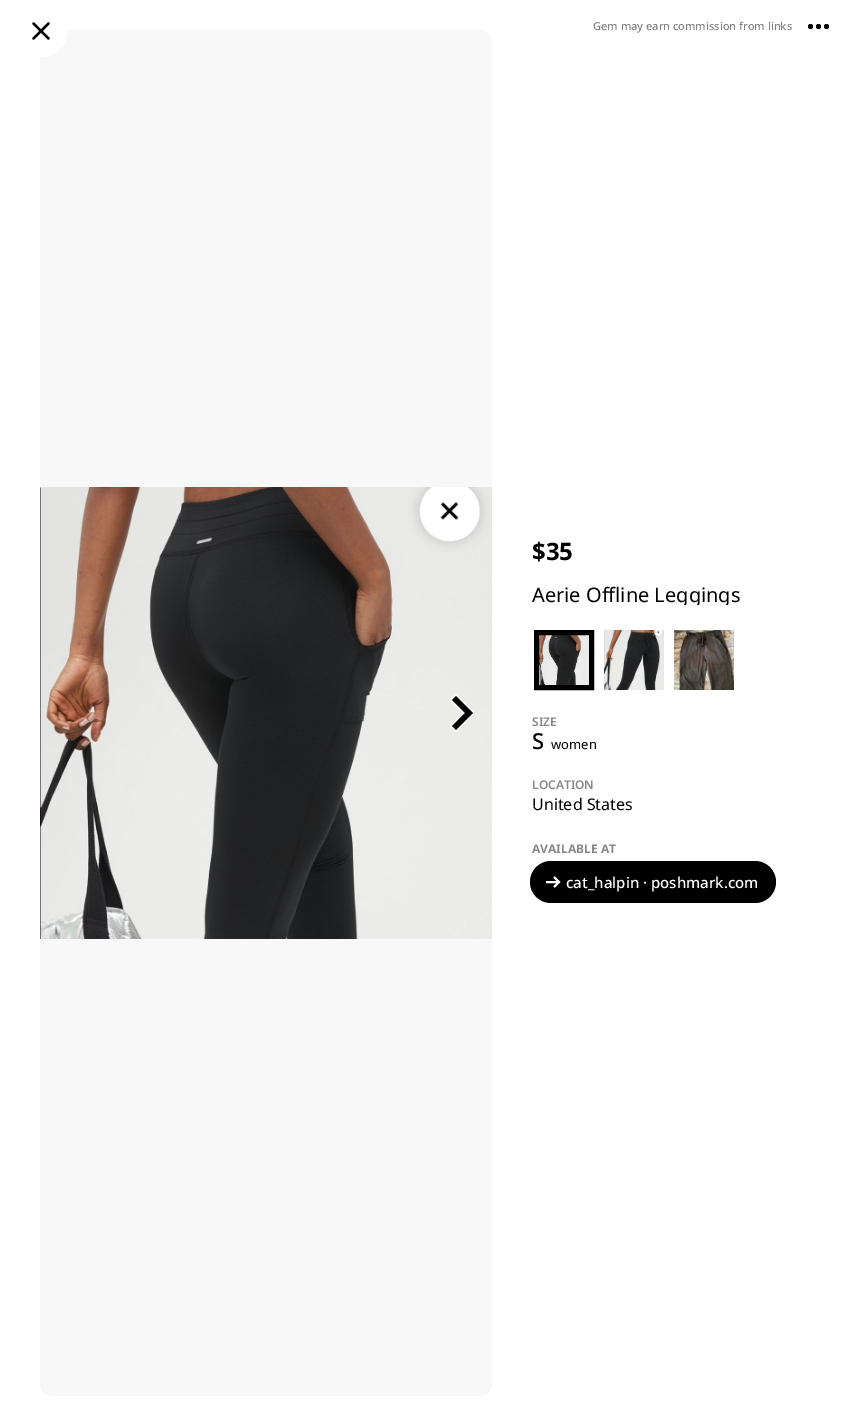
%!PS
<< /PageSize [852 1426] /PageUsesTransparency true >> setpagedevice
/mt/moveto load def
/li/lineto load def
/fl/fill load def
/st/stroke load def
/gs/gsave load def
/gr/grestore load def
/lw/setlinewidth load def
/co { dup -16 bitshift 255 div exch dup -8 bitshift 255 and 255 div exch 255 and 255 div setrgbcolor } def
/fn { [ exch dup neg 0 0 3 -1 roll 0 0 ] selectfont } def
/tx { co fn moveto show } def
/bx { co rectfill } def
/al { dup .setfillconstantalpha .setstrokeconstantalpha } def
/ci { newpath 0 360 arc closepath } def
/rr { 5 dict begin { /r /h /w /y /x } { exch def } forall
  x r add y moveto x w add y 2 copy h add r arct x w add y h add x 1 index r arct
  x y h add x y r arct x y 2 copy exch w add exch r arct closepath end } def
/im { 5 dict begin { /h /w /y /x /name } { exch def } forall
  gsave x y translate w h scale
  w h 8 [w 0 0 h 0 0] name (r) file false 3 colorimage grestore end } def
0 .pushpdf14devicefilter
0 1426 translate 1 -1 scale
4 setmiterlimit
0 0 852 1426 16#FFFFFF bx
16#F8F8F8 co
40 30 452 1366 12 rr fl
16#FFFFFF co
41 31 26 ci fl
16#000000 co
2.3 lw
1 setlinecap
33.5 38.5 mt 48.5 23.5 li 48.5 38.5 mt 33.5 23.5 li st
810.5 26.5 2.5 ci fl
818.5 26.5 2.5 ci fl
826.5 26.5 2.5 ci fl
(media/1.raw) 40 487 452 452 im
0.5 al
16#FFFFFF co
9.1 lw
2 setlinecap
456 700 mt 469 713 li 456 726 li st
1 al
16#000000 co
5.6 lw
456 700 mt 469 713 li 456 726 li st
(media/2.raw) 539 635 50 50 im
5 lw
0 setlinecap
536.5 632.5 55 55 rectstroke
(media/3.raw) 604 630 60 60 im
(media/4.raw) 674 630 60 60 im
530 861 246 42 21 rr fl
16#FFFFFF co
2 lw
546 882 mt 559 882 li 554 877 mt 559 882 li 554 887 li st
(Gem may earn commission from links) 593 30 /NotoSans-Medium 11 16#808080 tx
($35) 532 560 /NotoSans-Bold 24 16#000000 tx
gs
532 585 280 20 rectclip
(Aerie Offline Leggings) 532 602 /NotoSans-Regular 20 16#000000 tx
gr
(SIZE) 532 726 /NotoSans-SemiBold 12 16#888888 tx
(S) 532 749 /NotoSans-Medium 22 16#000000 tx
(women) 551 749 /NotoSans-Regular 13 16#000000 tx
(LOCATION) 532 789 /NotoSans-SemiBold 12 16#888888 tx
(United States) 532 810 /NotoSans-Regular 16 16#000000 tx
(AVAILABLE AT) 532 853 /NotoSans-Bold 12 16#888888 tx
(cat_halpin · poshmark.com) 566 888 /NotoSans-Medium 15 16#FFFFFF tx
.poppdf14devicefilter showpage
